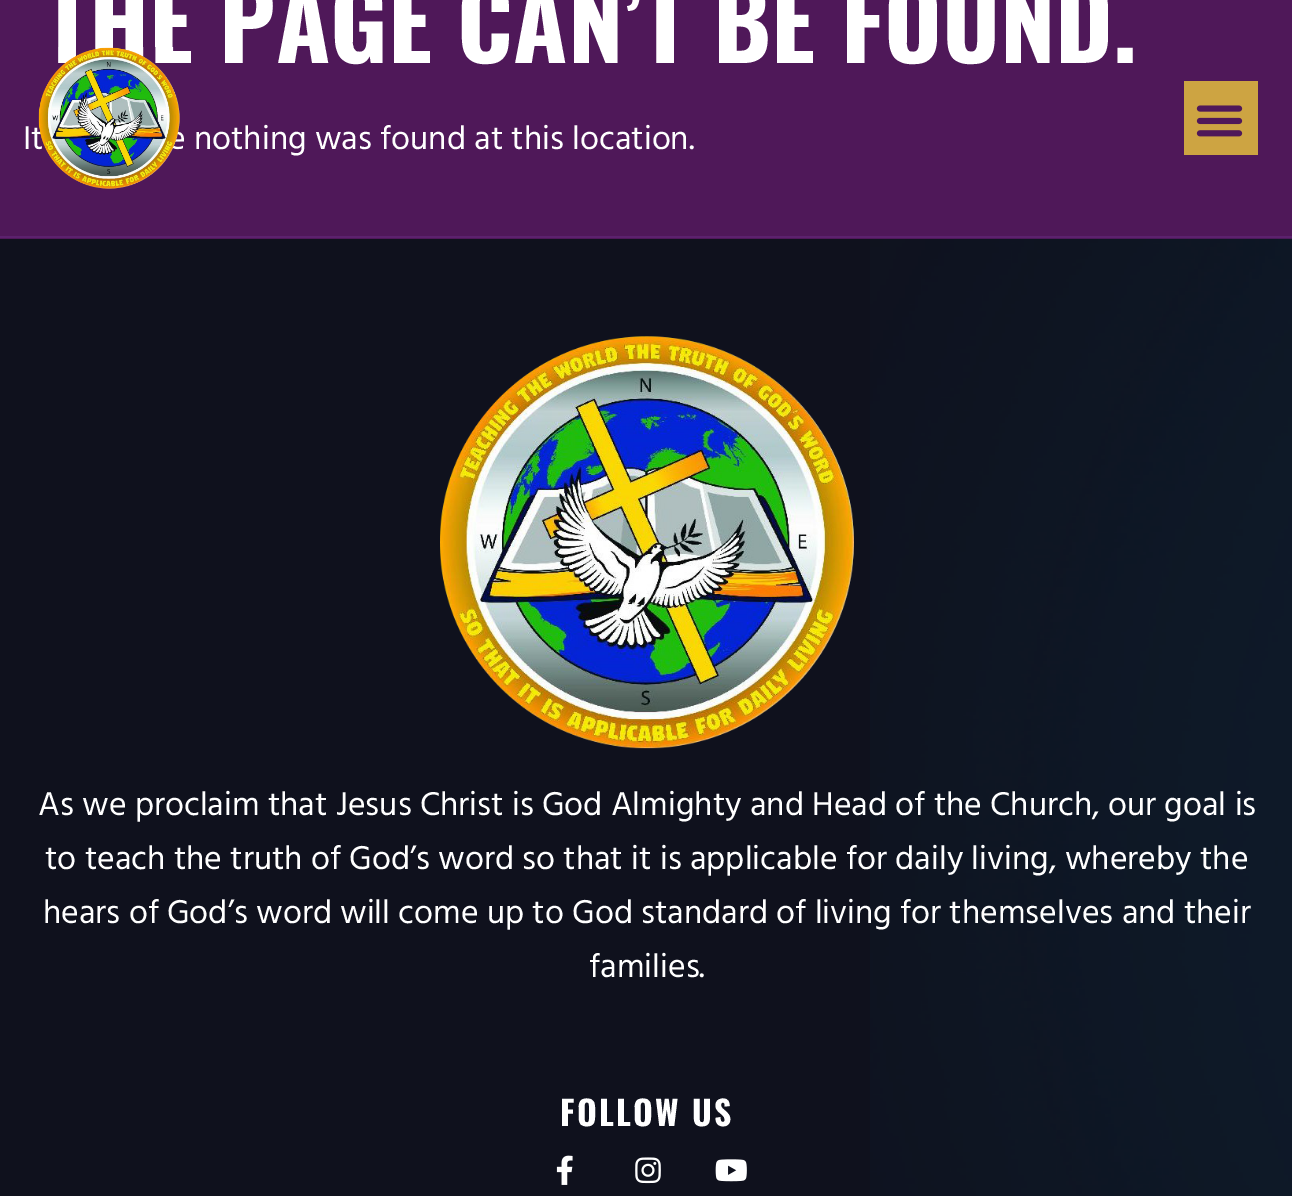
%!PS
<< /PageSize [1292 1196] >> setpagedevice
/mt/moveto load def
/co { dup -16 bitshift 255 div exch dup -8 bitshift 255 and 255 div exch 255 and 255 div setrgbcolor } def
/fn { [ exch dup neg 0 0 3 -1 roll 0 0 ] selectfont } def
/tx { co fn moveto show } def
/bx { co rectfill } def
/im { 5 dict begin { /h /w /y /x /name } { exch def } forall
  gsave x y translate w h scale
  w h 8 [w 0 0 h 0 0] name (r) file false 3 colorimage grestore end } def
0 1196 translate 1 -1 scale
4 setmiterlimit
0 0 1292 1196 16#4F1859 bx
0 236 1292 2 16#5C216E bx
1184 81 74 74 16#CDA442 bx
(media/2.raw) 1196 105 47 32 im
0 239 1292 957 16#0F111D bx
(media/3.raw) 870 238 422 958 im
(media/4.raw) 440 336 414 413 im
(media/5.raw) 556 1155 17 30 im
(media/6.raw) 635 1157 26 27 im
(media/7.raw) 715 1159 32 23 im
(THE PAGE CAN’T BE FOUND.) 45 63 /Oswald-Bold 99 16#FFFFFF tx
(It) 23 149 /Hind-Regular 33.75 16#FFFFFF tx
(e nothing was found at this location.) 168 149 /Hind-Regular 33.75 16#FFFFFF tx
(media/1.raw) 38 47 142 142 im
(As we proclaim that Jesus Christ is God Almighty and Head of the Church, our goal is) 38 815 /Hind-Regular 33.75 16#FFFFFF tx
(to teach the truth of God’s word so that it is applicable for daily living, whereby the) 45 869 /Hind-Regular 33.75 16#FFFFFF tx
(hears of God’s word will come up to God standard of living for themselves and their) 43 923 /Hind-Regular 33.75 16#FFFFFF tx
(families.) 589 977 /Hind-Regular 33.75 16#FFFFFF tx
/Oswald-Bold 33.75 fn
560 1126 mt 2.25 0 (FOLLOW US) ashow
showpage
